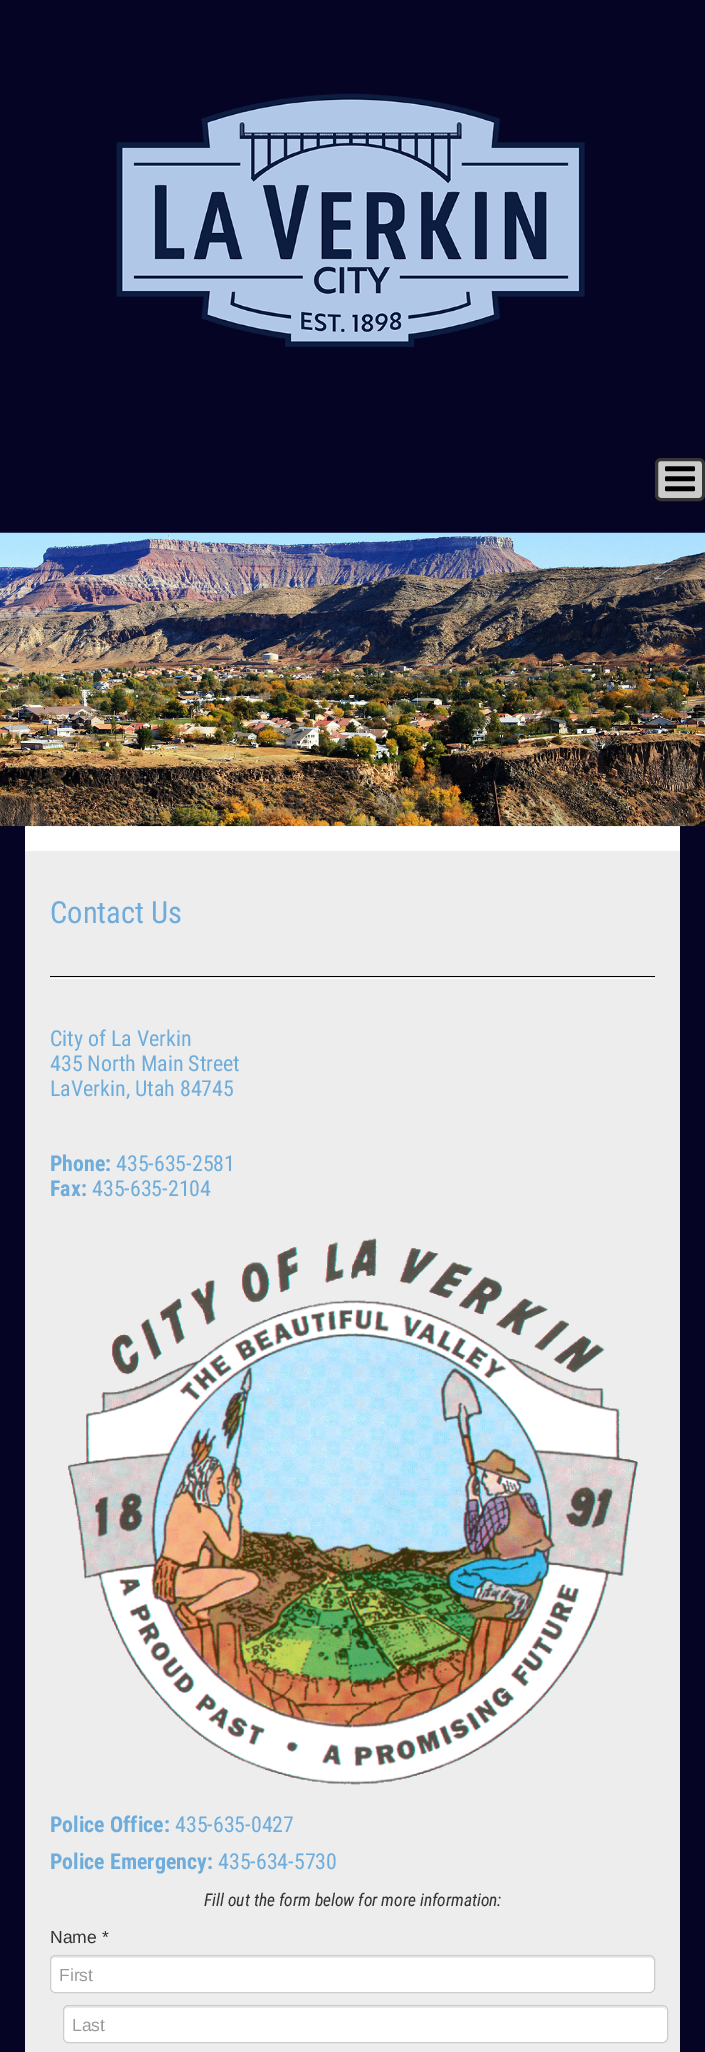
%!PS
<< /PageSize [705 2052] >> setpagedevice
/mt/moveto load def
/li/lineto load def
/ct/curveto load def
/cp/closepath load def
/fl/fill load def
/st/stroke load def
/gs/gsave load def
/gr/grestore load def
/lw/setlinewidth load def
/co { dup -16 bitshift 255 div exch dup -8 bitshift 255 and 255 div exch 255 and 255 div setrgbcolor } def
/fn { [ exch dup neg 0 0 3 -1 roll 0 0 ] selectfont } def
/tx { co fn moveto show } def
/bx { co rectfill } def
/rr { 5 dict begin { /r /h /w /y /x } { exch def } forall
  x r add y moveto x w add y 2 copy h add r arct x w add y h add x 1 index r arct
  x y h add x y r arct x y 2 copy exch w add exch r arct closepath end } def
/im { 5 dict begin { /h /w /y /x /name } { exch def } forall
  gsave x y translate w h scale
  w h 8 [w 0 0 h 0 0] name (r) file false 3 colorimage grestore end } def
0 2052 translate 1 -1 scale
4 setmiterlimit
0 0 705 2052 16#060425 bx
(media/1.raw) 116 93 469 254 im
16#CCCCCC co
656.5 459.5 47 40 4.5 rr gs fl gr
16#363636 co
3 lw
st
(media/2.raw) 665 466 30 26 im
25 826 655 25 16#FFFFFF bx
(media/3.raw) 0 532 705 295 im
25 851 655 1201 16#EDEDED bx
50 976 605 1 16#000000 bx
50 978 605 1 16#FFFFFF bx
(media/4.raw) 68 1238 570 547 im
50 1955 605 38 5 rr fl
16#ECECEC co
55 1958 mt 650 1958 li 652 1958 654 1959 654 1961 ct 654 1960 li 654 1958 652 1956 650 1956 ct 55 1956 li 53 1956 51 1958 51 1960 ct 51 1961 li 51 1959 53 1958 55 1958 ct cp fl
16#CCCCCC co
1 lw
50.5 1955.5 604 37 4.5 rr st
16#FFFFFF co
63 2005 605 38 5 rr fl
16#ECECEC co
68 2008 mt 662 2008 li 665 2008 666 2009 666 2011 ct 666 2010 li 666 2008 664 2006 662 2006 ct 68 2006 li 66 2006 64 2008 64 2010 ct 64 2011 li 64 2009 65 2008 68 2008 ct cp fl
16#CCCCCC co
63.5 2005.5 604 37 4.5 rr st
(Contact Us) 50 923 /RobotoCondensed-Regular 30.5 16#6EACDB tx
(City of La Verkin) 50 1046 /RobotoCondensed-Regular 21.9 16#6EACDB tx
(435 North Main Street) 50 1071 /RobotoCondensed-Regular 21.9 16#6EACDB tx
(LaVerkin, Utah 84745) 50 1096 /RobotoCondensed-Regular 21.9 16#6EACDB tx
(Phone:) 50 1171 /RobotoCondensed-Bold 21.9 16#6EACDB tx
(435-635-2581) 116 1171 /RobotoCondensed-Regular 21.9 16#6EACDB tx
(Fax:) 50 1196 /RobotoCondensed-Bold 21.9 16#6EACDB tx
(435-635-2104) 92 1196 /RobotoCondensed-Regular 21.9 16#6EACDB tx
(Police Office:) 50 1832 /RobotoCondensed-Bold 21.9 16#6EACDB tx
(435-635-0427) 175 1832 /RobotoCondensed-Regular 21.9 16#6EACDB tx
(Police Emergency:) 50 1869 /RobotoCondensed-Bold 21.9 16#6EACDB tx
(435-634-5730) 218 1869 /RobotoCondensed-Regular 21.9 16#6EACDB tx
(Fill out the form below for more information:) 204 1906 /RobotoCondensed-Italic 17.5 16#333333 tx
(Name *) 50 1943 /LiberationSans-Regular 17.5 16#333333 tx
(First) 59 1981 /LiberationSans-Regular 17.5 16#999999 tx
(Last) 72 2031 /LiberationSans-Regular 17.5 16#999999 tx
showpage
